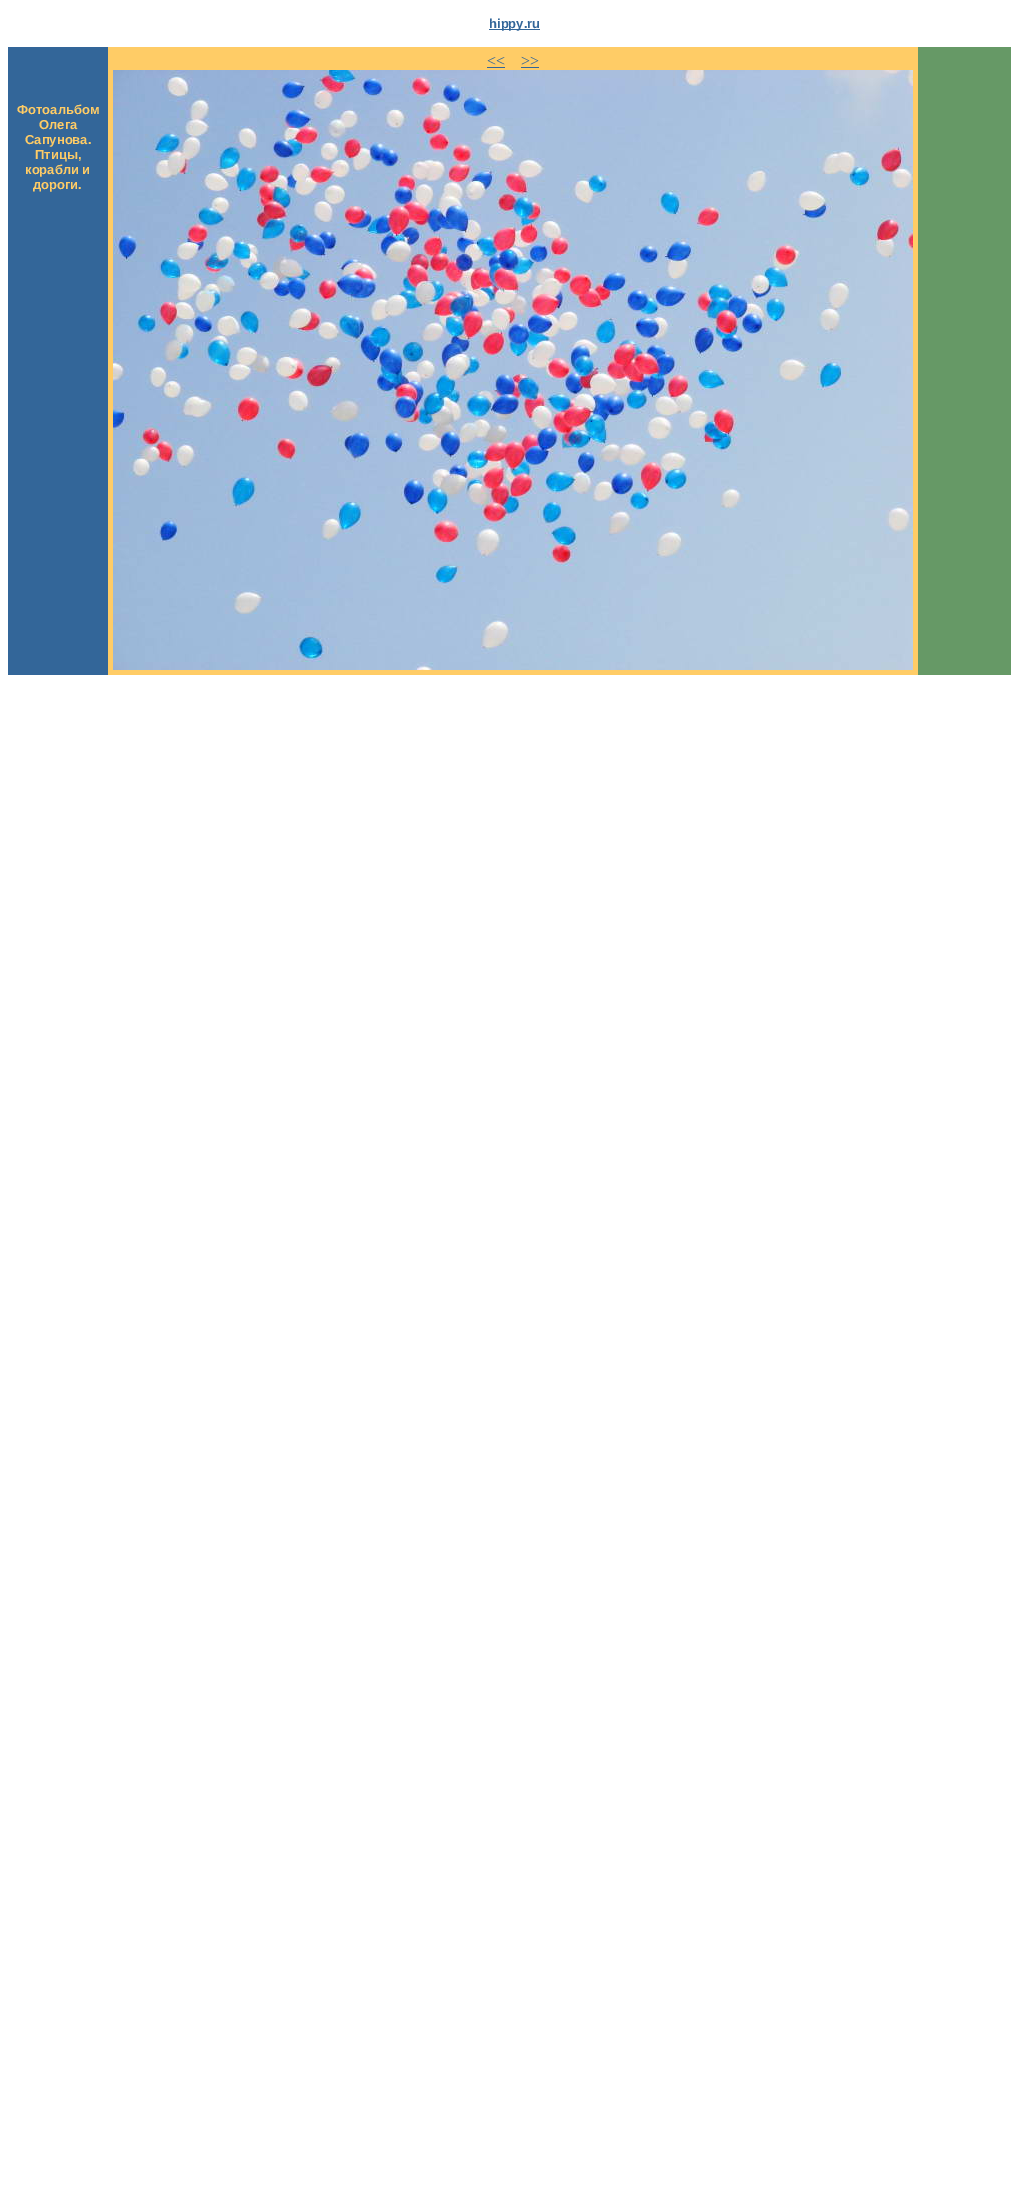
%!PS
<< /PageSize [1029 2204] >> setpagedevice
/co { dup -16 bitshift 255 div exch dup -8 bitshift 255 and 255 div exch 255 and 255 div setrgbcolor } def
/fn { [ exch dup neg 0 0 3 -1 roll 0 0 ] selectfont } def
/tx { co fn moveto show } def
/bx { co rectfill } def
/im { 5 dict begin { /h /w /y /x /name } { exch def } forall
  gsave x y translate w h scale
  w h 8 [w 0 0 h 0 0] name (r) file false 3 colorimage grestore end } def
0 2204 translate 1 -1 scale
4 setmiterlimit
0 0 1029 2204 16#FFFFFF bx
489 29 51 1 16#336699 bx
108 47 810 628 16#FFCC66 bx
487 67 18 1 16#336699 bx
521 67 18 1 16#336699 bx
(media/1.raw) 113 70 800 600 im
918 47 93 628 16#669966 bx
8 47 100 628 16#336699 bx
(hippy.ru) 489 28 /LiberationSans-Bold 13 16#336699 tx
(<<) 487 66 /LiberationSerif-Regular 16 16#336699 tx
(>>) 521 66 /LiberationSerif-Regular 16 16#336699 tx
(Фотоальбом) 17 114 /LiberationSans-Bold 13 16#FFCC66 tx
(Олега) 39 129 /LiberationSans-Bold 13 16#FFCC66 tx
(Сапунова.) 25 144 /LiberationSans-Bold 13 16#FFCC66 tx
(Птицы,) 35 159 /LiberationSans-Bold 13 16#FFCC66 tx
(корабли и) 25 174 /LiberationSans-Bold 13 16#FFCC66 tx
(дороги.) 33 189 /LiberationSans-Bold 13 16#FFCC66 tx
showpage
